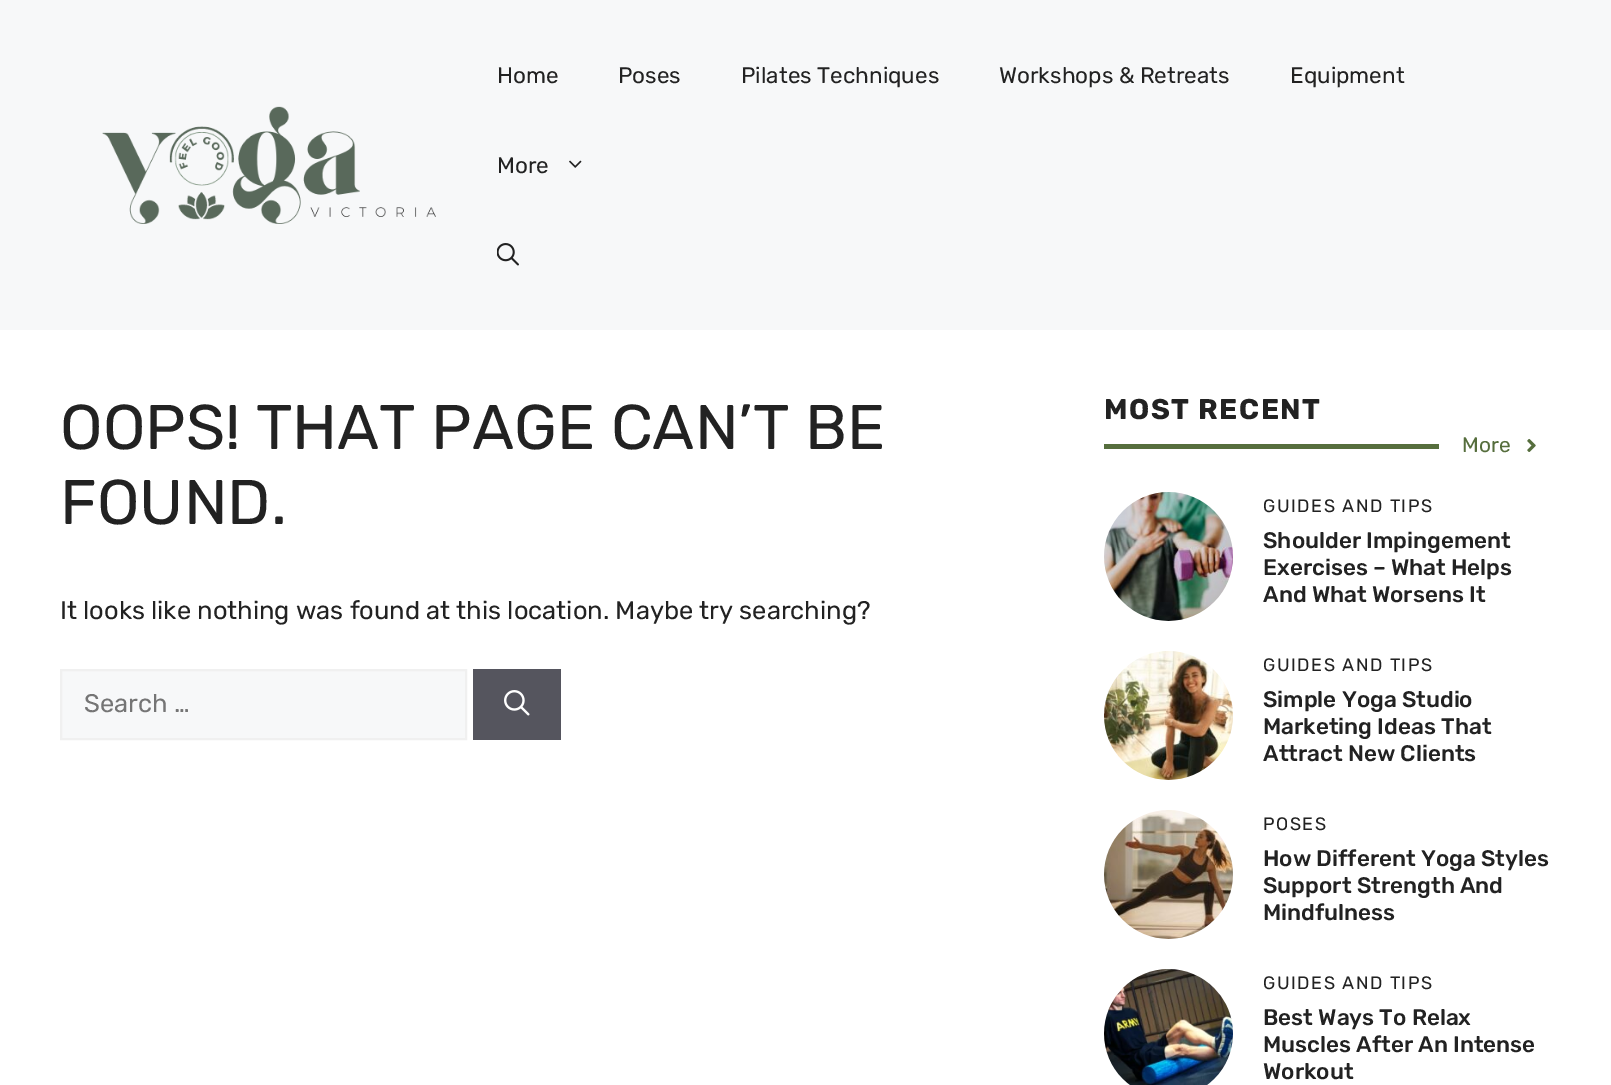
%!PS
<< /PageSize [1611 1085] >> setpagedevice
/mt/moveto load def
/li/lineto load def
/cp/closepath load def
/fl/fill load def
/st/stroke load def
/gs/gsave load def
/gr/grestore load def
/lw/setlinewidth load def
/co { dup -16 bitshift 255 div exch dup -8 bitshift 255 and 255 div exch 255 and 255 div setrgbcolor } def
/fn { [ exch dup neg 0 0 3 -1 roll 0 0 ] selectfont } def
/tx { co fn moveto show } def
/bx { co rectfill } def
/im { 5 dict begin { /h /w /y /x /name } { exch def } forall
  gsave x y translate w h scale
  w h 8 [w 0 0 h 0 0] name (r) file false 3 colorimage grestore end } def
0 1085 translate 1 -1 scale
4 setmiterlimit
0 0 1611 1085 16#FFFFFF bx
0 0 1611 330 16#F7F8F9 bx
(media/1.raw) 102 106 334 118 im
(media/2.raw) 569 160 13 8 im
(media/3.raw) 497 243 22 23 im
61 670 mt 466 670 li 466 739 li 61 739 li cp gs fl gr
16#F0F0F0 co
2 lw
st
473 669 88 71 16#55555E bx
(media/4.raw) 504 690 26 26 im
1104 444 335 5 16#566E3D bx
(media/5.raw) 1527 438 9 14 im
(media/6.raw) 1104 492 129 129 im
(media/7.raw) 1104 651 129 129 im
(media/8.raw) 1104 810 129 129 im
(media/9.raw) 1104 969 129 116 im
(Home) 497 83 /Rubik-Regular 22.5 16#222222 tx
(Poses) 618 83 /Rubik-Regular 22.5 16#222222 tx
(Pilates Techniques) 741 83 /Rubik-Regular 22.5 16#222222 tx
(Workshops & Retreats) 999 83 /Rubik-Regular 22.5 16#222222 tx
(Equipment) 1290 83 /Rubik-Regular 22.5 16#222222 tx
(More) 497 173 /Rubik-Regular 22.5 16#222222 tx
(OOPS! THAT PAGE CAN’T BE) 60 449 /Rubik-Regular 63 16#222222 tx
(FOUND.) 60 524 /Rubik-Regular 63 16#222222 tx
(It looks like nothing was found at this location. Maybe try searching?) 60 619 /Rubik-Regular 25.5 16#222222 tx
(Search …) 84 712 /Rubik-Regular 25.5 16#757575 tx
/Rubik-Bold 28.5 fn
16#222222 co
1104 419 mt 1.5 0 (MOST RECENT) ashow
(More) 1462 452 /Rubik-Regular 21 16#566E3D tx
/Rubik-Regular 18 fn
16#222222 co
1263 512 mt 1.5 0 (GUIDES AND TIPS) ashow
(Shoulder Impingement) 1263 548 /Rubik-Medium 22.5 16#222222 tx
(Exercises – What Helps) 1263 575 /Rubik-Medium 22.5 16#222222 tx
(And What Worsens It) 1263 602 /Rubik-Medium 22.5 16#222222 tx
/Rubik-Regular 18 fn
1263 671 mt 1.5 0 (GUIDES AND TIPS) ashow
(Simple Yoga Studio) 1263 707 /Rubik-Medium 22.5 16#222222 tx
(Marketing Ideas That) 1263 734 /Rubik-Medium 22.5 16#222222 tx
(Attract New Clients) 1263 761 /Rubik-Medium 22.5 16#222222 tx
/Rubik-Regular 18 fn
1263 830 mt 1.5 0 (POSES) ashow
(How Different Yoga Styles) 1263 866 /Rubik-Medium 22.5 16#222222 tx
(Support Strength And) 1263 893 /Rubik-Medium 22.5 16#222222 tx
(Mindfulness) 1263 920 /Rubik-Medium 22.5 16#222222 tx
/Rubik-Regular 18 fn
1263 989 mt 1.5 0 (GUIDES AND TIPS) ashow
(Best Ways To Relax) 1263 1025 /Rubik-Medium 22.5 16#222222 tx
(Muscles After An Intense) 1263 1052 /Rubik-Medium 22.5 16#222222 tx
(Workout) 1263 1079 /Rubik-Medium 22.5 16#222222 tx
showpage
